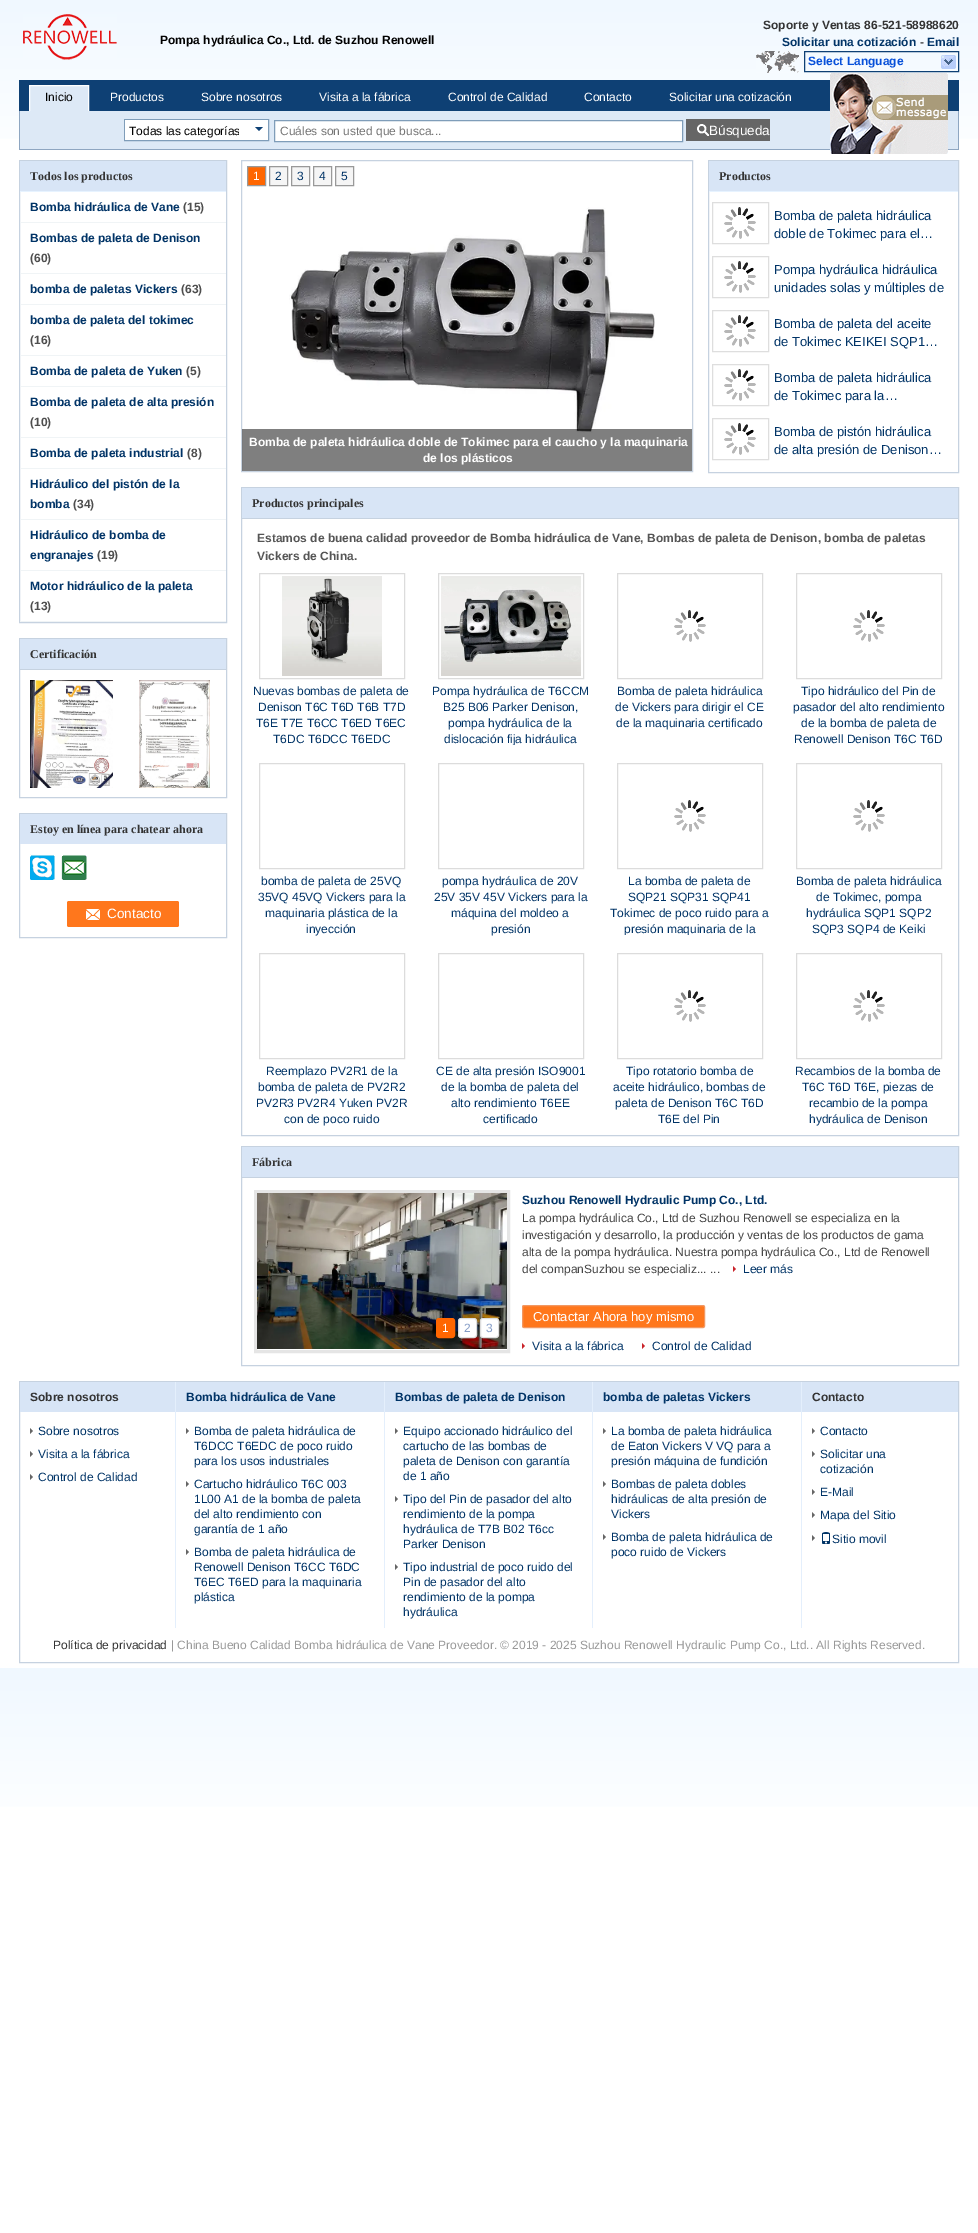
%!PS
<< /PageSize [978 2233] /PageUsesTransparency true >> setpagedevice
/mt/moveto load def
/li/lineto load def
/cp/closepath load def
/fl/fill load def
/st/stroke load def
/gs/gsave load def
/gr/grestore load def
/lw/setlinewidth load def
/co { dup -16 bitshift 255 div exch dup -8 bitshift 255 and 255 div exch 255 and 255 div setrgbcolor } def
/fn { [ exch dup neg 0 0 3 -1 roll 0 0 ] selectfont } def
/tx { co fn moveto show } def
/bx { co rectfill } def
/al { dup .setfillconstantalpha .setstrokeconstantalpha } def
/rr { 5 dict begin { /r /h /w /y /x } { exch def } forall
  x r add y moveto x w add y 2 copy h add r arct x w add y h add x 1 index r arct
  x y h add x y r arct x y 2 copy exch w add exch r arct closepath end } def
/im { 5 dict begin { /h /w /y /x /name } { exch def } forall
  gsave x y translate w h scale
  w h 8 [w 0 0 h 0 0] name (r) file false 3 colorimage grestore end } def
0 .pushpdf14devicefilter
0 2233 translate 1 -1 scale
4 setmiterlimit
0 0 978 2233 16#FFFFFF bx
gs 0 0 mt 978 0 li 978 139 li 0 139 li cp clip newpath
<< /ShadingType 2 /ColorSpace /DeviceRGB /Coords [489 0 489 1668] /Extend [true true] /Function << /FunctionType 3 /Domain [0 1] /Functions [<< /FunctionType 2 /Domain [0 1] /C0 [.941 .973 1] /C1 [1 1 1] /N 1 >> << /FunctionType 2 /Domain [0 1] /C0 [1 1 1] /C1 [1 1 1] /N 1 >>] /Bounds [.1] /Encode [0 1 0 1] >> >> shfill gr
gs 0 1668 mt 978 1668 li 978 1807 li 0 1807 li cp clip newpath
<< /ShadingType 2 /ColorSpace /DeviceRGB /Coords [489 1668 489 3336] /Extend [true true] /Function << /FunctionType 3 /Domain [0 1] /Functions [<< /FunctionType 2 /Domain [0 1] /C0 [.941 .973 1] /C1 [1 1 1] /N 1 >> << /FunctionType 2 /Domain [0 1] /C0 [1 1 1] /C1 [1 1 1] /N 1 >>] /Bounds [.1] /Encode [0 1 0 1] >> >> shfill gr
(media/1.raw) 23 14 94 46 im
(media/2.raw) 756 51 43 22 im
16#0E4074 co
804.5 51.5 154 20 rectstroke
(media/3.raw) 941 55 15 14 im
958 110 1 40 16#8EA6C1 bx
19 149 940 1 16#8EA6C1 bx
19 110 1 40 16#8EA6C1 bx
19 80 940 31 16#0E4074 bx
30 86 58 25 16#DDE9F6 bx
20 111 938 38 16#DDE9F6 bx
gs
19 80 940 31 rectclip
16#FFFFFF co
29.5 85.5 59 39 rectstroke
gr
16#7F9DB9 co
124.5 119.5 144 21 rectstroke
125 120 143 20 16#FFFFFF bx
16#0E4074 co
255 127 mt 263 127 li 259 131 li cp fl
16#FFFFFF co
274.5 120.5 mt 682.5 120.5 li 682.5 141.5 li 274.5 141.5 li cp gs fl gr
16#7F9DB9 co
st
686 119 84 22 16#666666 bx
(media/4.raw) 697 124 12 12 im
16#C6D2E0 co
19.5 160.5 207 462 rectstroke
20 161 206 30 16#D8E5F6 bx
20 191 206 1 16#E7F3FF bx
20 222 206 1 16#F0F4F6 bx
20 273 206 1 16#F0F4F6 bx
20 304 206 1 16#F0F4F6 bx
20 355 206 1 16#F0F4F6 bx
20 386 206 1 16#F0F4F6 bx
20 437 206 1 16#F0F4F6 bx
20 468 206 1 16#F0F4F6 bx
20 519 206 1 16#F0F4F6 bx
20 570 206 1 16#F0F4F6 bx
20 621 206 1 16#F0F4F6 bx
16#C6D2E0 co
19.5 638.5 207 159 rectstroke
20 639 206 30 16#D8E5F6 bx
20 669 206 1 16#C6D2E0 bx
(media/5.raw) 30 680 83 108 im
(media/6.raw) 139 680 71 108 im
19.5 813.5 207 124 rectstroke
20 814 206 30 16#D8E5F6 bx
(media/7.raw) 30 854 25 26 im
(media/8.raw) 61 855 26 25 im
16#FF771C co
67 901 112 26 2 rr fl
(media/9.raw) 86 909 14 11 im
16#C6D2E0 co
241.5 160.5 451 311 rectstroke
16#FF6600 co
247.5 166.5 mt 265.5 166.5 li 265.5 185.5 li 247.5 185.5 li cp gs fl gr
16#999999 co
st
16#F5F5F5 co
269.5 166.5 mt 287.5 166.5 li 287.5 185.5 li 269.5 185.5 li cp gs fl gr
16#999999 co
st
16#F5F5F5 co
291.5 166.5 mt 309.5 166.5 li 309.5 185.5 li 291.5 185.5 li cp gs fl gr
16#999999 co
st
16#F5F5F5 co
313.5 166.5 mt 331.5 166.5 li 331.5 185.5 li 313.5 185.5 li cp gs fl gr
16#999999 co
st
16#F5F5F5 co
335.5 166.5 mt 353.5 166.5 li 353.5 185.5 li 335.5 185.5 li cp gs fl gr
16#999999 co
st
(media/10.raw) 289 207 366 226 im
0.5 al
242 429 450 42 16#000000 bx
1 al
16#C6D2E0 co
708.5 160.5 250 312 rectstroke
709 161 249 30 16#D8E5F6 bx
709 191 249 1 16#E7F3FF bx
16#DEDEDE co
712.5 202.5 56 41 rectstroke
(media/11.raw) 724 207 32 32 im
712.5 256.5 56 41 rectstroke
(media/11.raw) 724 261 32 32 im
712.5 310.5 56 41 rectstroke
(media/11.raw) 724 315 32 32 im
712.5 364.5 56 41 rectstroke
(media/11.raw) 724 369 32 32 im
712.5 418.5 56 41 rectstroke
(media/11.raw) 724 423 32 32 im
16#C6D2E0 co
241.5 487.5 717 648 rectstroke
242 488 716 30 16#D8E5F6 bx
242 518 716 1 16#C6D2E0 bx
16#DCDCDC co
259.5 573.5 145 105 rectstroke
(media/12.raw) 282 576 100 100 im
438.5 573.5 145 105 rectstroke
(media/13.raw) 441 576 140 100 im
617.5 573.5 145 105 rectstroke
(media/11.raw) 674 610 32 32 im
796.5 573.5 145 105 rectstroke
(media/11.raw) 853 610 32 32 im
259.5 763.5 145 105 rectstroke
438.5 763.5 145 105 rectstroke
617.5 763.5 145 105 rectstroke
(media/11.raw) 674 800 32 32 im
796.5 763.5 145 105 rectstroke
(media/11.raw) 853 800 32 32 im
259.5 953.5 145 105 rectstroke
438.5 953.5 145 105 rectstroke
617.5 953.5 145 105 rectstroke
(media/11.raw) 674 990 32 32 im
796.5 953.5 145 105 rectstroke
(media/11.raw) 853 990 32 32 im
16#C6D2E0 co
241.5 1146.5 717 219 rectstroke
242 1147 716 30 16#D8E5F6 bx
242 1177 716 1 16#C6D2E0 bx
16#E5E5E5 co
3 lw
255.5 1191.5 253 160 rectstroke
(media/14.raw) 257 1193 250 156 im
16#FF6600 co
436.5 1318.5 18 19 2.5 rr gs fl gr
1 lw
st
16#FFFFFF co
458.5 1318.5 18 19 2.5 rr gs fl gr
16#DDDDDD co
st
16#FFFFFF co
480.5 1318.5 18 19 2.5 rr gs fl gr
16#DDDDDD co
st
16#C9242B co
733 1272 mt 733 1266 li 736 1269 li cp fl
16#FF771C co
522.5 1305.5 182 22 1.5 rr gs fl gr
16#F29862 co
st
16#C9242B co
522 1349 mt 522 1343 li 525 1346 li cp fl
642 1349 mt 642 1343 li 645 1346 li cp fl
16#C6D2E0 co
19.5 1381.5 939 281 rectstroke
175 1382 1 246 16#E4EFFC bx
20 1382 155 30 16#D8E5F6 bx
16#666666 co
30 1434 mt 30 1428 li 33 1431 li cp fl
30 1457 mt 30 1451 li 33 1454 li cp fl
30 1480 mt 30 1474 li 33 1477 li cp fl
384 1382 1 246 16#E4EFFC bx
176 1382 208 30 16#D8E5F6 bx
16#666666 co
186 1434 mt 186 1428 li 189 1431 li cp fl
186 1487 mt 186 1481 li 189 1484 li cp fl
186 1555 mt 186 1549 li 189 1552 li cp fl
592 1382 1 246 16#E4EFFC bx
385 1382 207 30 16#D8E5F6 bx
16#666666 co
395 1434 mt 395 1428 li 398 1431 li cp fl
395 1502 mt 395 1496 li 398 1499 li cp fl
395 1570 mt 395 1564 li 398 1567 li cp fl
801 1382 1 246 16#E4EFFC bx
593 1382 208 30 16#D8E5F6 bx
16#666666 co
603 1434 mt 603 1428 li 606 1431 li cp fl
603 1487 mt 603 1481 li 606 1484 li cp fl
603 1540 mt 603 1534 li 606 1537 li cp fl
802 1382 156 30 16#D8E5F6 bx
16#666666 co
812 1434 mt 812 1428 li 815 1431 li cp fl
812 1457 mt 812 1451 li 815 1454 li cp fl
812 1495 mt 812 1489 li 815 1492 li cp fl
812 1518 mt 812 1512 li 815 1515 li cp fl
812 1541 mt 812 1535 li 815 1538 li cp fl
(media/15.raw) 822 1532 8 12 im
(media/16.raw) 830 73 118 81 im
(Pompa hydráulica Co., Ltd. de Suzhou Renowell) 160 44 /LiberationSans-Bold 12 16#000000 tx
(Soporte y Ventas 86-521-58988620) 763 29 /LiberationSans-Bold 12 16#333333 tx
(Solicitar una cotización) 782 46 /LiberationSans-Bold 12 16#003366 tx
(-) 920 46 /LiberationSans-Bold 12 16#333333 tx
(Email) 927 46 /LiberationSans-Bold 12 16#003366 tx
(Select Language) 808 65 /LiberationSans-Bold 12 16#0750D9 tx
(Inicio) 45 101 /LiberationSans-Regular 12 16#000000 tx
(Productos) 110 101 /LiberationSans-Regular 12 16#FFFFFF tx
(Sobre nosotros) 201 101 /LiberationSans-Regular 12 16#FFFFFF tx
(Visita a la fábrica) 319 101 /LiberationSans-Regular 12 16#FFFFFF tx
(Control de Calidad) 448 101 /LiberationSans-Regular 12 16#FFFFFF tx
(Contacto) 584 101 /LiberationSans-Regular 12 16#FFFFFF tx
(Solicitar una cotización) 669 101 /LiberationSans-Regular 12 16#FFFFFF tx
gs
129 121 110 19 rectclip
(Todas las categorías) 129 135 /LiberationSans-Regular 12 16#000000 tx
gr
(Cuáles son usted que busca...) 280 135 /LiberationSans-Regular 12 16#757575 tx
(Búsqueda) 709 135 /LiberationSans-Regular 13.5 16#FFFFFF tx
(Todos los productos) 30 180 /LiberationSerif-Bold 12 16#333333 tx
(Bomba hidráulica de Vane) 30 211 /LiberationSans-Bold 12 16#003366 tx
(\(15\)) 183 211 /LiberationSans-Bold 12 16#4E4E4E tx
(Bombas de paleta de Denison) 30 242 /LiberationSans-Bold 12 16#003366 tx
(\(60\)) 30 262 /LiberationSans-Bold 12 16#4E4E4E tx
(bomba de paletas Vickers) 30 293 /LiberationSans-Bold 12 16#003366 tx
(\(63\)) 181 293 /LiberationSans-Bold 12 16#4E4E4E tx
(bomba de paleta del tokimec) 30 324 /LiberationSans-Bold 12 16#003366 tx
(\(16\)) 30 344 /LiberationSans-Bold 12 16#4E4E4E tx
(Bomba de paleta de Yuken) 30 375 /LiberationSans-Bold 12 16#003366 tx
(\(5\)) 186 375 /LiberationSans-Bold 12 16#4E4E4E tx
(Bomba de paleta de alta presión) 30 406 /LiberationSans-Bold 12 16#003366 tx
(\(10\)) 30 426 /LiberationSans-Bold 12 16#4E4E4E tx
(Bomba de paleta industrial) 30 457 /LiberationSans-Bold 12 16#003366 tx
(\(8\)) 187 457 /LiberationSans-Bold 12 16#4E4E4E tx
(Hidráulico del pistón de la) 30 488 /LiberationSans-Bold 12 16#003366 tx
(bomba) 30 508 /LiberationSans-Bold 12 16#003366 tx
(\(34\)) 73 508 /LiberationSans-Bold 12 16#4E4E4E tx
(Hidráulico de bomba de) 30 539 /LiberationSans-Bold 12 16#003366 tx
(engranajes) 30 559 /LiberationSans-Bold 12 16#003366 tx
(\(19\)) 97 559 /LiberationSans-Bold 12 16#4E4E4E tx
(Motor hidráulico de la paleta) 30 590 /LiberationSans-Bold 12 16#003366 tx
(\(13\)) 30 610 /LiberationSans-Bold 12 16#4E4E4E tx
(Certificación) 30 658 /LiberationSerif-Bold 12 16#333333 tx
(Estoy en línea para chatear ahora) 30 833 /LiberationSerif-Bold 12 16#333333 tx
(Contacto) 107 918 /LiberationSans-Regular 13.5 16#FFFFFF tx
(1) 253 180 /LiberationSans-Regular 12 16#FFFFFF tx
(2) 275 180 /LiberationSans-Regular 12 16#003366 tx
(3) 297 180 /LiberationSans-Regular 12 16#003366 tx
(4) 319 180 /LiberationSans-Regular 12 16#003366 tx
(5) 341 180 /LiberationSans-Regular 12 16#003366 tx
(Bomba de paleta hidráulica doble de Tokimec para el caucho y la maquinaria) 249 446 /LiberationSans-Bold 12 16#FFFFFF tx
(de los plásticos) 423 462 /LiberationSans-Bold 12 16#FFFFFF tx
(Productos) 719 180 /LiberationSerif-Bold 12 16#333333 tx
(Bomba de paleta hidráulica) 774 220 /LiberationSans-Regular 13 16#003366 tx
(doble de Tokimec para el…) 774 238 /LiberationSans-Regular 13 16#003366 tx
(Pompa hydráulica hidráulica) 774 274 /LiberationSans-Regular 13 16#003366 tx
(unidades solas y múltiples de) 774 292 /LiberationSans-Regular 13 16#003366 tx
(Bomba de paleta del aceite) 774 328 /LiberationSans-Regular 13 16#003366 tx
(de Tokimec KEIKEI SQP1…) 774 346 /LiberationSans-Regular 13 16#003366 tx
(Bomba de paleta hidráulica) 774 382 /LiberationSans-Regular 13 16#003366 tx
(de Tokimec para la…) 774 400 /LiberationSans-Regular 13 16#003366 tx
(Bomba de pistón hidráulica) 774 436 /LiberationSans-Regular 13 16#003366 tx
(de alta presión de Denison…) 774 454 /LiberationSans-Regular 13 16#003366 tx
(Productos principales) 252 507 /LiberationSerif-Bold 12 16#333333 tx
(Estamos de buena calidad proveedor de Bomba hidráulica de Vane, Bombas de paleta de Denison, bomba de paletas) 257 542 /LiberationSans-Bold 12 16#555555 tx
(Vickers de China.) 257 560 /LiberationSans-Bold 12 16#555555 tx
(Nuevas bombas de paleta de) 253 695 /LiberationSans-Regular 12 16#003366 tx
(Denison T6C T6D T6B T7D) 258 711 /LiberationSans-Regular 12 16#003366 tx
(T6E T7E T6CC T6ED T6EC) 256 727 /LiberationSans-Regular 12 16#003366 tx
(T6DC T6DCC T6EDC) 273 743 /LiberationSans-Regular 12 16#003366 tx
(Pompa hydráulica de T6CCM) 432 695 /LiberationSans-Regular 12 16#003366 tx
(B25 B06 Parker Denison,) 443 711 /LiberationSans-Regular 12 16#003366 tx
(pompa hydráulica de la) 448 727 /LiberationSans-Regular 12 16#003366 tx
gs
431 679 159 66 rectclip
(dislocación fija hidráulica) 444 743 /LiberationSans-Regular 12 16#003366 tx
gr
(Bomba de paleta hidráulica) 617 695 /LiberationSans-Regular 12 16#003366 tx
(de Vickers para dirigir el CE) 615 711 /LiberationSans-Regular 12 16#003366 tx
(de la maquinaria certificado) 616 727 /LiberationSans-Regular 12 16#003366 tx
(Tipo hidráulico del Pin de) 801 695 /LiberationSans-Regular 12 16#003366 tx
(pasador del alto rendimiento) 793 711 /LiberationSans-Regular 12 16#003366 tx
(de la bomba de paleta de) 801 727 /LiberationSans-Regular 12 16#003366 tx
(Renowell Denison T6C T6D) 794 743 /LiberationSans-Regular 12 16#003366 tx
(bomba de paleta de 25VQ) 261 885 /LiberationSans-Regular 12 16#003366 tx
(35VQ 45VQ Vickers para la) 258 901 /LiberationSans-Regular 12 16#003366 tx
(maquinaria plástica de la) 265 917 /LiberationSans-Regular 12 16#003366 tx
(inyección) 306 933 /LiberationSans-Regular 12 16#003366 tx
(pompa hydráulica de 20V) 442 885 /LiberationSans-Regular 12 16#003366 tx
(25V 35V 45V Vickers para la) 434 901 /LiberationSans-Regular 12 16#003366 tx
(máquina del moldeo a) 451 917 /LiberationSans-Regular 12 16#003366 tx
(presión) 491 933 /LiberationSans-Regular 12 16#003366 tx
(La bomba de paleta de) 628 885 /LiberationSans-Regular 12 16#003366 tx
(SQP21 SQP31 SQP41) 628 901 /LiberationSans-Regular 12 16#003366 tx
(Tokimec de poco ruido para a) 610 917 /LiberationSans-Regular 12 16#003366 tx
gs
610 869 159 66 rectclip
(presión maquinaria de la) 624 933 /LiberationSans-Regular 12 16#003366 tx
gr
(Bomba de paleta hidráulica) 796 885 /LiberationSans-Regular 12 16#003366 tx
(de Tokimec, pompa) 816 901 /LiberationSans-Regular 12 16#003366 tx
(hydráulica SQP1 SQP2) 806 917 /LiberationSans-Regular 12 16#003366 tx
gs
789 869 159 66 rectclip
(SQP3 SQP4 de Keiki) 812 933 /LiberationSans-Regular 12 16#003366 tx
gr
(Reemplazo PV2R1 de la) 266 1075 /LiberationSans-Regular 12 16#003366 tx
(bomba de paleta de PV2R2) 258 1091 /LiberationSans-Regular 12 16#003366 tx
(PV2R3 PV2R4 Yuken PV2R) 256 1107 /LiberationSans-Regular 12 16#003366 tx
(con de poco ruido) 284 1123 /LiberationSans-Regular 12 16#003366 tx
(CE de alta presión ISO9001) 436 1075 /LiberationSans-Regular 12 16#003366 tx
(de la bomba de paleta del) 441 1091 /LiberationSans-Regular 12 16#003366 tx
(alto rendimiento T6EE) 451 1107 /LiberationSans-Regular 12 16#003366 tx
(certificado) 483 1123 /LiberationSans-Regular 12 16#003366 tx
(Tipo rotatorio bomba de) 626 1075 /LiberationSans-Regular 12 16#003366 tx
(aceite hidráulico, bombas de) 613 1091 /LiberationSans-Regular 12 16#003366 tx
(paleta de Denison T6C T6D) 615 1107 /LiberationSans-Regular 12 16#003366 tx
(T6E del Pin) 658 1123 /LiberationSans-Regular 12 16#003366 tx
(Recambios de la bomba de) 795 1075 /LiberationSans-Regular 12 16#003366 tx
(T6C T6D T6E, piezas de) 802 1091 /LiberationSans-Regular 12 16#003366 tx
(recambio de la pompa) 809 1107 /LiberationSans-Regular 12 16#003366 tx
(hydráulica de Denison) 809 1123 /LiberationSans-Regular 12 16#003366 tx
(Fábrica) 252 1166 /LiberationSerif-Bold 12 16#333333 tx
(1) 442 1332 /LiberationSans-Regular 12 16#FFFFFF tx
(2) 464 1332 /LiberationSans-Regular 12 16#849CC6 tx
(3) 486 1332 /LiberationSans-Regular 12 16#849CC6 tx
(Suzhou Renowell Hydraulic Pump Co., Ltd.) 522 1204 /LiberationSans-Bold 12 16#003366 tx
(La pompa hydráulica Co., Ltd de Suzhou Renowell se especializa en la) 522 1222 /LiberationSans-Regular 12 16#444444 tx
(investigación y desarrollo, la producción y ventas de los productos de gama) 522 1239 /LiberationSans-Regular 12 16#444444 tx
(alta de la pompa hydráulica. Nuestra pompa hydráulica Co., Ltd de Renowell) 522 1256 /LiberationSans-Regular 12 16#444444 tx
(del companSuzhou se especializ... ...) 522 1273 /LiberationSans-Regular 12 16#444444 tx
(Leer más) 743 1273 /LiberationSans-Regular 12 16#003366 tx
(Contactar Ahora hoy mismo) 533 1321 /LiberationSans-Regular 13 16#FFFFFF tx
(Visita a la fábrica) 532 1350 /LiberationSans-Regular 12 16#003366 tx
(Control de Calidad) 652 1350 /LiberationSans-Regular 12 16#003366 tx
(Sobre nosotros) 30 1401 /LiberationSans-Bold 12 16#333333 tx
(Sobre nosotros) 38 1435 /LiberationSans-Regular 12 16#003366 tx
(Visita a la fábrica) 38 1458 /LiberationSans-Regular 12 16#003366 tx
(Control de Calidad) 38 1481 /LiberationSans-Regular 12 16#003366 tx
(Bomba hidráulica de Vane) 186 1401 /LiberationSans-Bold 12 16#003366 tx
(Bomba de paleta hidráulica de) 194 1435 /LiberationSans-Regular 12 16#003366 tx
(T6DCC T6EDC de poco ruido) 194 1450 /LiberationSans-Regular 12 16#003366 tx
(para los usos industriales) 194 1465 /LiberationSans-Regular 12 16#003366 tx
(Cartucho hidráulico T6C 003) 194 1488 /LiberationSans-Regular 12 16#003366 tx
(1L00 A1 de la bomba de paleta) 194 1503 /LiberationSans-Regular 12 16#003366 tx
(del alto rendimiento con) 194 1518 /LiberationSans-Regular 12 16#003366 tx
(garantía de 1 año) 194 1533 /LiberationSans-Regular 12 16#003366 tx
(Bomba de paleta hidráulica de) 194 1556 /LiberationSans-Regular 12 16#003366 tx
(Renowell Denison T6CC T6DC) 194 1571 /LiberationSans-Regular 12 16#003366 tx
(T6EC T6ED para la maquinaria) 194 1586 /LiberationSans-Regular 12 16#003366 tx
(plástica) 194 1601 /LiberationSans-Regular 12 16#003366 tx
(Bombas de paleta de Denison) 395 1401 /LiberationSans-Bold 12 16#003366 tx
(Equipo accionado hidráulico del) 403 1435 /LiberationSans-Regular 12 16#003366 tx
(cartucho de las bombas de) 403 1450 /LiberationSans-Regular 12 16#003366 tx
(paleta de Denison con garantía) 403 1465 /LiberationSans-Regular 12 16#003366 tx
(de 1 año) 403 1480 /LiberationSans-Regular 12 16#003366 tx
(Tipo del Pin de pasador del alto) 403 1503 /LiberationSans-Regular 12 16#003366 tx
(rendimiento de la pompa) 403 1518 /LiberationSans-Regular 12 16#003366 tx
(hydráulica de T7B B02 T6cc) 403 1533 /LiberationSans-Regular 12 16#003366 tx
(Parker Denison) 403 1548 /LiberationSans-Regular 12 16#003366 tx
(Tipo industrial de poco ruido del) 403 1571 /LiberationSans-Regular 12 16#003366 tx
(Pin de pasador del alto) 403 1586 /LiberationSans-Regular 12 16#003366 tx
(rendimiento de la pompa) 403 1601 /LiberationSans-Regular 12 16#003366 tx
(hydráulica) 403 1616 /LiberationSans-Regular 12 16#003366 tx
(bomba de paletas Vickers) 603 1401 /LiberationSans-Bold 12 16#003366 tx
(La bomba de paleta hidráulica) 611 1435 /LiberationSans-Regular 12 16#003366 tx
(de Eaton Vickers V VQ para a) 611 1450 /LiberationSans-Regular 12 16#003366 tx
(presión máquina de fundición) 611 1465 /LiberationSans-Regular 12 16#003366 tx
(Bombas de paleta dobles) 611 1488 /LiberationSans-Regular 12 16#003366 tx
(hidráulicas de alta presión de) 611 1503 /LiberationSans-Regular 12 16#003366 tx
(Vickers) 611 1518 /LiberationSans-Regular 12 16#003366 tx
(Bomba de paleta hidráulica de) 611 1541 /LiberationSans-Regular 12 16#003366 tx
(poco ruido de Vickers) 611 1556 /LiberationSans-Regular 12 16#003366 tx
(Contacto) 812 1401 /LiberationSans-Bold 12 16#333333 tx
(Contacto) 820 1435 /LiberationSans-Regular 12 16#003366 tx
(Solicitar una) 820 1458 /LiberationSans-Regular 12 16#003366 tx
(cotización) 820 1473 /LiberationSans-Regular 12 16#003366 tx
(E-Mail) 820 1496 /LiberationSans-Regular 12 16#003366 tx
(Mapa del Sitio) 820 1519 /LiberationSans-Regular 12 16#003366 tx
(Sitio movil) 832 1543 /LiberationSans-Regular 12 16#003366 tx
(Política de privacidad) 53 1649 /LiberationSans-Regular 12 16#333333 tx
(| China Bueno Calidad Bomba hidráulica de Vane Proveedor. © 2019 - 2025 Suzhou Renowell Hydraulic Pump Co., Ltd.. All Rights Reserved.) 171 1649 /LiberationSans-Regular 12 16#999999 tx
.poppdf14devicefilter showpage
